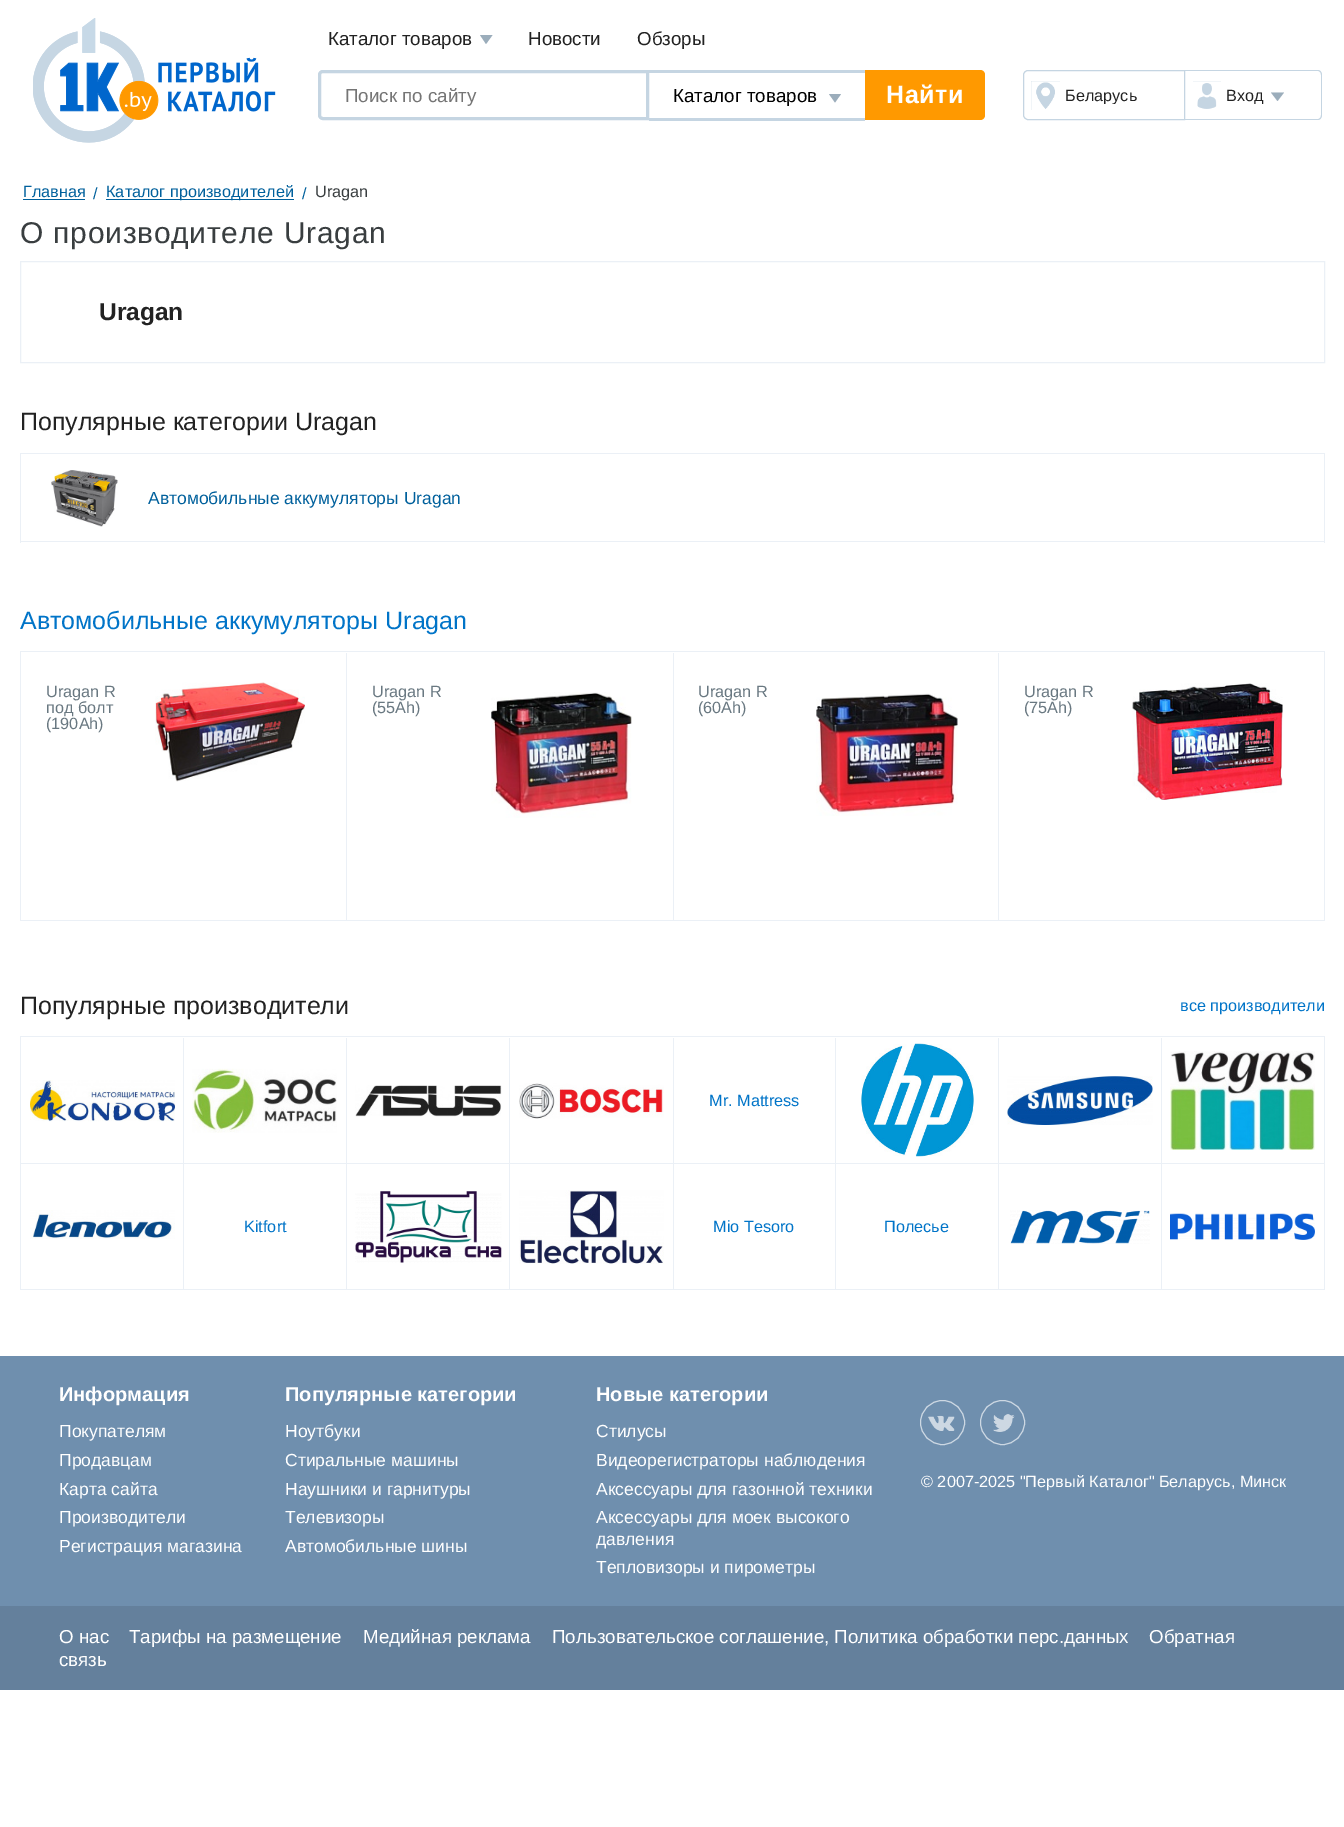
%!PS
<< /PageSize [1344 1827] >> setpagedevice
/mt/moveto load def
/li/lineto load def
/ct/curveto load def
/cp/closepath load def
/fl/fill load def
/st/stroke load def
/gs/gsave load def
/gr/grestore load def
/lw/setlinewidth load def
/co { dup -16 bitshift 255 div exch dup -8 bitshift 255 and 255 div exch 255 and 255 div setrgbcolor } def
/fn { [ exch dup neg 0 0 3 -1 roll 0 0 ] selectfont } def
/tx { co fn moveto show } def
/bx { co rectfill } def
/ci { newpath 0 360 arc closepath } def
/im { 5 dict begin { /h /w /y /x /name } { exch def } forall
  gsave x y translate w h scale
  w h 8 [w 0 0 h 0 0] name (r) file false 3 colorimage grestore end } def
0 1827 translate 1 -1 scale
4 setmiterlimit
0 0 1344 1827 16#FFFFFF bx
(media/1.raw) 33 18 243 125 im
16#9BADBB co
480 35 mt 492.5 35 li 486 44 li cp fl
16#C5D5E2 co
3 lw
323 71.5 mt 647.5 71.5 li 647.5 118.5 li 323 118.5 li 321 118.5 319.5 117 319.5 115 ct 319.5 75 li 319.5 73 321 71.5 323 71.5 ct cp st
649 70 216 3 16#C5D5E2 bx
649 118 216 3 16#C5D5E2 bx
16#9BADBB co
829 94 mt 841 94 li 835 102.5 li cp fl
16#FF9900 co
865 70 mt 980 70 li 983 70 985 72 985 75 ct 985 115 li 985 118 983 120 980 120 ct 865 120 li cp fl
16#C5D5E2 co
1 lw
1028 70.5 mt 1184.5 70.5 li 1184.5 119.5 li 1028 119.5 li 1025.5 119.5 1023.5 117.5 1023.5 115 ct 1023.5 75 li 1023.5 72.5 1025.5 70.5 1028 70.5 ct cp st
1031 81 29 29 16#C5D5E2 bx
(media/2.raw) 1031 81 29 29 im
1185 70 mt 1318 70 li 1320 70 1322 72 1322 75 ct 1322 115 li 1322 118 1320 120 1318 120 ct 1185 120 li cp 1185 71 mt 1318 71 li 1320 71 1321 73 1321 75 ct 1321 115 li 1321 117 1320 119 1318 119 ct 1185 119 li cp eofill
1193 81 28 28 16#C5D5E2 bx
(media/3.raw) 1193 81 28 29 im
16#9BADBB co
1271 92.5 mt 1284 92.5 li 1277.5 101 li cp fl
23 199 62 1 16#00609C bx
106 199 188 1 16#00609C bx
16#EBF0F6 co
20.5 261.5 1304 101 rectstroke
20 453 1305 1 16#EBF0F6 bx
1324 453 1 90 16#EBF0F6 bx
20 453 1 90 16#EBF0F6 bx
21 541 1303 1 16#EBF0F6 bx
(media/4.raw) 51 470 67 57 im
20 651 1305 1 16#EBF0F6 bx
1324 651 1 270 16#EBF0F6 bx
20 651 1 270 16#EBF0F6 bx
346 653 1 268 16#EBF0F6 bx
21 920 327 1 16#EBF0F6 bx
(media/5.raw) 155 682 150 100 im
673 653 1 268 16#EBF0F6 bx
348 920 326 1 16#EBF0F6 bx
(media/6.raw) 491 692 141 126 im
998 653 1 268 16#EBF0F6 bx
674 920 650 1 16#EBF0F6 bx
(media/7.raw) 816 693 142 123 im
(media/8.raw) 1132 683 151 117 im
20 1036 1305 1 16#EBF0F6 bx
1324 1036 1 254 16#EBF0F6 bx
20 1036 1 254 16#EBF0F6 bx
183 1038 1 252 16#EBF0F6 bx
21 1163 163 1 16#EBF0F6 bx
(media/9.raw) 30 1080 145 42 im
346 1038 1 252 16#EBF0F6 bx
184 1163 164 1 16#EBF0F6 bx
(media/10.raw) 192 1068 145 65 im
509 1038 1 252 16#EBF0F6 bx
348 1163 162 1 16#EBF0F6 bx
(media/11.raw) 355 1085 147 32 im
673 1038 1 252 16#EBF0F6 bx
510 1163 164 1 16#EBF0F6 bx
(media/12.raw) 519 1083 145 36 im
998 1038 1 252 16#EBF0F6 bx
836 1163 163 1 16#EBF0F6 bx
(media/13.raw) 861 1043 113 114 im
1161 1038 1 252 16#EBF0F6 bx
999 1163 325 1 16#EBF0F6 bx
(media/14.raw) 1007 1076 146 49 im
835 1038 1 252 16#EBF0F6 bx
674 1163 162 1 16#EBF0F6 bx
(media/15.raw) 1170 1051 145 99 im
(media/16.raw) 355 1191 147 72 im
(media/17.raw) 519 1190 145 74 im
21 1289 1303 1 16#EBF0F6 bx
(media/18.raw) 30 1210 145 29 im
(media/19.raw) 1010 1210 140 34 im
(media/20.raw) 1170 1213 145 27 im
0 1356 1344 250 16#6F8FAE bx
(media/21.raw) 928 1415 27 16 im
16#CDD8E3 co
942.5 1422.5 22 ci st
(media/22.raw) 993 1414 22 18 im
1002.5 1422.5 22 ci st
0 1606 1344 84 16#64809C bx
(Каталог товаров) 328 45 /LiberationSans-Regular 18.75 16#222222 tx
(Новости) 528 45 /LiberationSans-Regular 18.75 16#222222 tx
(Обзоры) 637 45 /LiberationSans-Regular 18.75 16#222222 tx
(Поиск по сайту) 345 102 /LiberationSans-Regular 18.75 16#757575 tx
(Каталог товаров) 673 102 /LiberationSans-Regular 18.75 16#000000 tx
/LiberationSans-Bold 25 fn
16#FFFFFF co
886 103 mt .5 0 (Найти) ashow
gs
1065 86 73 18 rectclip
(Беларусь) 1065 101 /LiberationSans-Regular 16.25 16#222222 tx
gr
gs
1226 86 38 18 rectclip
(Вход) 1226 101 /LiberationSans-Regular 16.25 16#222222 tx
gr
(Главная) 23 197 /LiberationSans-Regular 16.25 16#00609C tx
(/) 93 199 /LiberationSans-Regular 16.25 16#00609C tx
(Каталог производителей) 106 197 /LiberationSans-Regular 16.25 16#00609C tx
(/) 302 199 /LiberationSans-Regular 16.25 16#00609C tx
(Uragan) 315 197 /LiberationSans-Regular 16.25 16#393E40 tx
/LiberationSans-Regular 30 fn
20 243 mt .75 0 (О производителе Uragan) ashow
(Uragan) 99 320 /LiberationSans-Bold 24.5 16#222222 tx
(Популярные категории Uragan) 20 430 /LiberationSans-Regular 25 16#222222 tx
(Автомобильные аккумуляторы Uragan) 148 504 /LiberationSans-Regular 17.5 16#00609C tx
(Автомобильные аккумуляторы Uragan) 20 629 /LiberationSans-Regular 25 16#0074C8 tx
(Uragan R) 46 697 /LiberationSans-Regular 16.25 16#697881 tx
(под болт) 46 713 /LiberationSans-Regular 16.25 16#697881 tx
(\(190Ah\)) 46 729 /LiberationSans-Regular 16.25 16#697881 tx
(Uragan R) 372 697 /LiberationSans-Regular 16.25 16#697881 tx
(\(55Ah\)) 372 713 /LiberationSans-Regular 16.25 16#697881 tx
(Uragan R) 698 697 /LiberationSans-Regular 16.25 16#697881 tx
(\(60Ah\)) 698 713 /LiberationSans-Regular 16.25 16#697881 tx
(Uragan R) 1024 697 /LiberationSans-Regular 16.25 16#697881 tx
(\(75Ah\)) 1024 713 /LiberationSans-Regular 16.25 16#697881 tx
(Популярные производители) 20 1014 /LiberationSans-Regular 25 16#222222 tx
(все производители) 1180 1011 /LiberationSans-Regular 16.25 16#0074C8 tx
(Mr. Mattress) 709 1106 /LiberationSans-Regular 16.25 16#0074C8 tx
(Kitfort) 244 1232 /LiberationSans-Regular 16.25 16#0074C8 tx
(Mio Tesoro) 713 1232 /LiberationSans-Regular 16.25 16#0074C8 tx
(Полесье) 884 1232 /LiberationSans-Regular 16.25 16#0074C8 tx
(Информация) 59 1401 /LiberationSans-Bold 20 16#FFFFFF tx
(Покупателям) 59 1437 /LiberationSans-Regular 17.5 16#FFFFFF tx
(Продавцам) 59 1466 /LiberationSans-Regular 17.5 16#FFFFFF tx
(Карта сайта) 59 1495 /LiberationSans-Regular 17.5 16#FFFFFF tx
(Производители) 59 1523 /LiberationSans-Regular 17.5 16#FFFFFF tx
(Регистрация магазина) 59 1552 /LiberationSans-Regular 17.5 16#FFFFFF tx
(Популярные категории) 285 1401 /LiberationSans-Bold 20 16#FFFFFF tx
(Ноутбуки) 285 1437 /LiberationSans-Regular 17.5 16#FFFFFF tx
(Стиральные машины) 285 1466 /LiberationSans-Regular 17.5 16#FFFFFF tx
(Наушники и гарнитуры) 285 1495 /LiberationSans-Regular 17.5 16#FFFFFF tx
(Телевизоры) 285 1523 /LiberationSans-Regular 17.5 16#FFFFFF tx
(Автомобильные шины) 285 1552 /LiberationSans-Regular 17.5 16#FFFFFF tx
(Новые категории) 596 1401 /LiberationSans-Bold 20 16#FFFFFF tx
(Стилусы) 596 1437 /LiberationSans-Regular 17.5 16#FFFFFF tx
(Видеорегистраторы наблюдения) 596 1466 /LiberationSans-Regular 17.5 16#FFFFFF tx
(Аксессуары для газонной техники) 596 1495 /LiberationSans-Regular 17.5 16#FFFFFF tx
(Аксессуары для моек высокого) 596 1523 /LiberationSans-Regular 17.5 16#FFFFFF tx
(давления) 596 1545 /LiberationSans-Regular 17.5 16#FFFFFF tx
(Тепловизоры и пирометры) 596 1573 /LiberationSans-Regular 17.5 16#FFFFFF tx
(© 2007-2025 "Первый Каталог" Беларусь, Минск) 921 1487 /LiberationSans-Regular 16.25 16#FFFFFF tx
(О нас) 59 1643 /LiberationSans-Regular 18.75 16#FFFFFF tx
(Тарифы на размещение) 129 1643 /LiberationSans-Regular 18.75 16#FFFFFF tx
(Медийная реклама) 363 1643 /LiberationSans-Regular 18.75 16#FFFFFF tx
(Пользовательское соглашение, Политика обработки перс.данных) 552 1643 /LiberationSans-Regular 18.75 16#FFFFFF tx
(Обратная) 1149 1643 /LiberationSans-Regular 18.75 16#FFFFFF tx
(связь) 59 1666 /LiberationSans-Regular 18.75 16#FFFFFF tx
showpage
